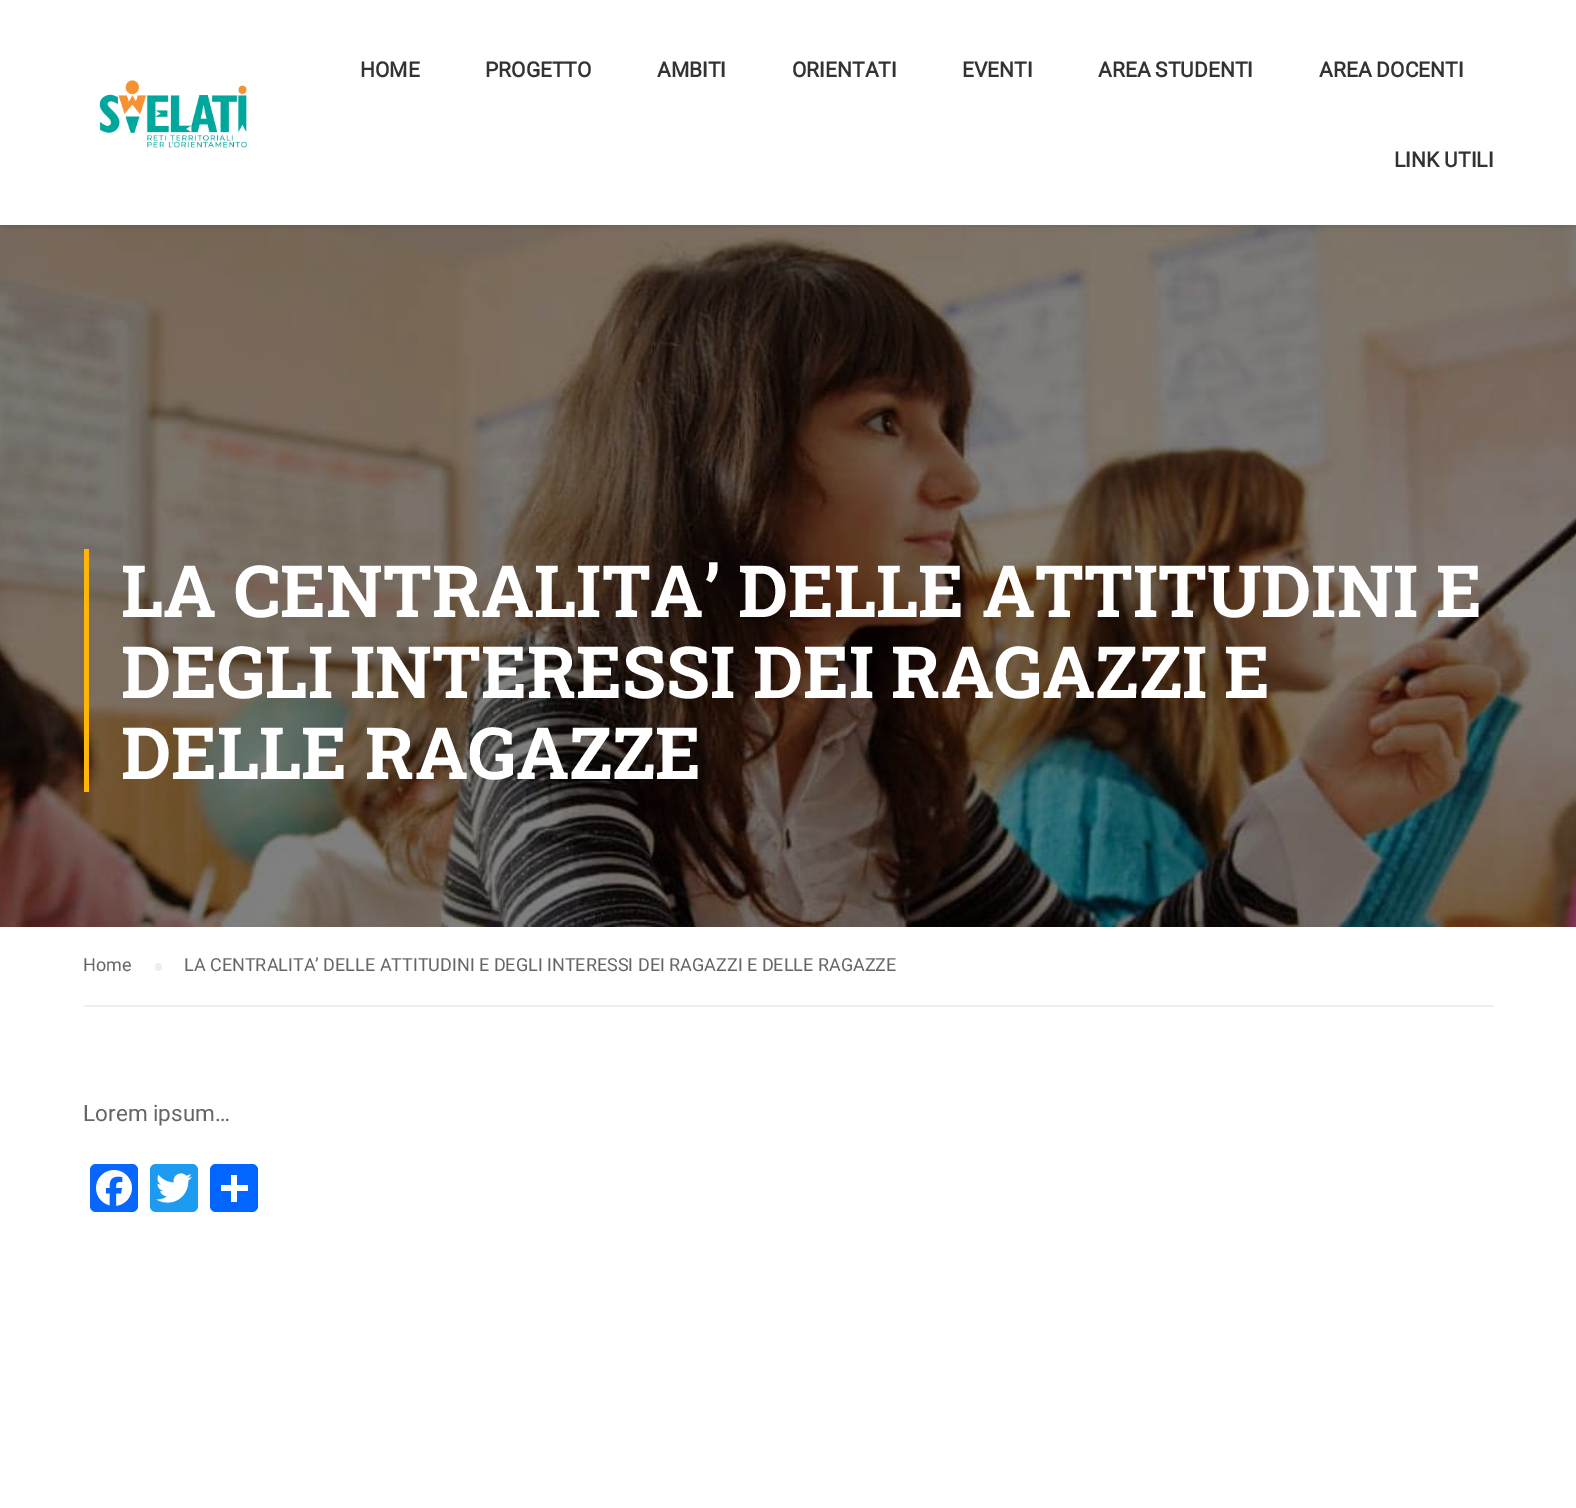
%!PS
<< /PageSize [1576 1508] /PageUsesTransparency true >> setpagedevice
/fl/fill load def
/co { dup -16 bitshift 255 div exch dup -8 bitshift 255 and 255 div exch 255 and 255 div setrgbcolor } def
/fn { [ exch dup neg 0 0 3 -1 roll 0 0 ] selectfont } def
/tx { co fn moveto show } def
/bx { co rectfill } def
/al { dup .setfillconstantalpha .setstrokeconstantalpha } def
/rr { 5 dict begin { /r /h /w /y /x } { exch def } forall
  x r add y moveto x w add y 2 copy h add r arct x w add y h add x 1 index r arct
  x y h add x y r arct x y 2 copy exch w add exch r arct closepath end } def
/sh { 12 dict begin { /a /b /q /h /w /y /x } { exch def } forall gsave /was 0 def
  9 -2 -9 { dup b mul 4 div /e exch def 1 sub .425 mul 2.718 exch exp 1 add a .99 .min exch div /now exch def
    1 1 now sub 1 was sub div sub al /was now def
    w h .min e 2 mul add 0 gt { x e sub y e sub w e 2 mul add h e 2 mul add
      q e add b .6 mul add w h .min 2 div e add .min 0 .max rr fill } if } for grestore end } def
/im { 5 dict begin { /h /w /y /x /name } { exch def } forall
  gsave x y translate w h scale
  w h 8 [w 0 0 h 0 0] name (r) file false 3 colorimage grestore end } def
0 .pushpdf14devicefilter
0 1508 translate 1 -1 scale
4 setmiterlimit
0 0 1576 1508 16#FFFFFF bx
(media/2.raw) 0 225 1576 702 im
16#2A2A2A co
3 5 1571 219 0 4 .4 sh
0 0 1576 225 16#FFFFFF bx
(media/1.raw) 99 80 148 68 im
84 549 5 243 16#FFB606 bx
84 1005 1410 2 16#EEEEEE bx
155 963 7 8 3.5 rr fl
16#0866FF co
90 1164 48 48 6 rr fl
(media/3.raw) 96 1170 36 36 im
16#1D9BF0 co
150 1164 48 48 6 rr fl
(media/4.raw) 156 1173 36 30 im
16#0166FF co
210 1164 48 48 6 rr fl
231 1175 6 27 16#FFFFFF bx
221 1185 27 6 16#FFFFFF bx
(HOME) 360 77 /Roboto-Bold 21 16#333333 tx
(PROGETTO) 485 77 /Roboto-Bold 21 16#333333 tx
(AMBITI) 657 77 /Roboto-Bold 21 16#333333 tx
(ORIENTATI) 792 77 /Roboto-Bold 21 16#333333 tx
(EVENTI) 962 77 /Roboto-Bold 21 16#333333 tx
(AREA STUDENTI) 1098 77 /Roboto-Bold 21 16#333333 tx
(AREA DOCENTI) 1319 77 /Roboto-Bold 21 16#333333 tx
(LINK UTILI) 1394 167 /Roboto-Bold 21 16#333333 tx
(LA CENTRALITA’ DELLE ATTITUDINI E) 121 617 /RobotoSlab-Bold 72 16#FFFFFF tx
(DEGLI INTERESSI DEI RAGAZZI E) 121 698 /RobotoSlab-Bold 72 16#FFFFFF tx
(DELLE RAGAZZE) 121 779 /RobotoSlab-Bold 72 16#FFFFFF tx
(Home) 83 971 /Roboto-Regular 18 16#666666 tx
(LA CENTRALITA’ DELLE ATTITUDINI E DEGLI INTERESSI DEI RAGAZZI E DELLE RAGAZZE) 184 971 /Roboto-Regular 18 16#666666 tx
(Lorem ipsum…) 83 1121 /Roboto-Regular 22.5 16#666666 tx
.poppdf14devicefilter showpage
